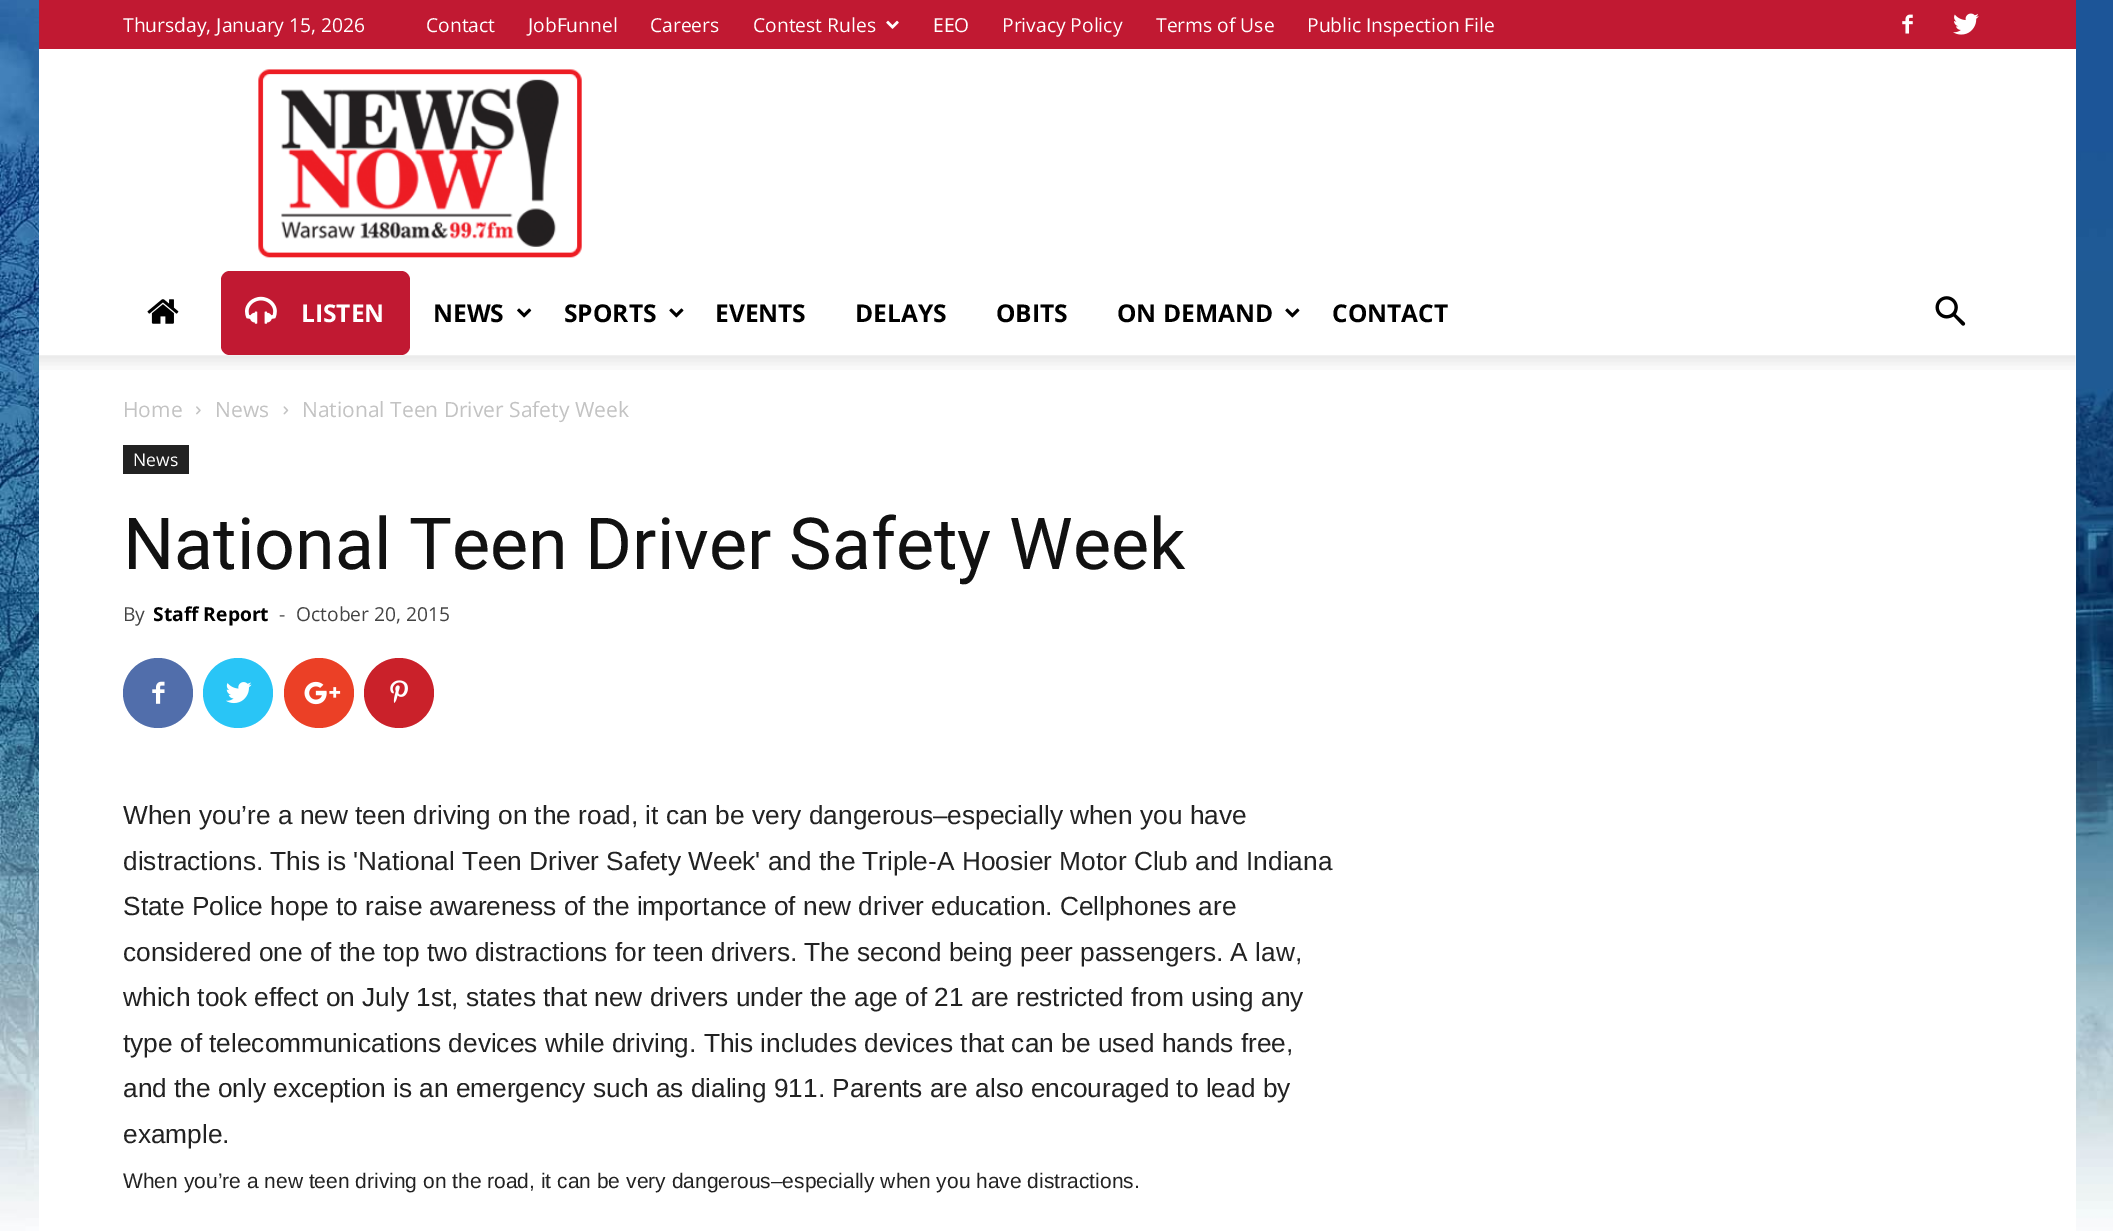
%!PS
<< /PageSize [2113 1231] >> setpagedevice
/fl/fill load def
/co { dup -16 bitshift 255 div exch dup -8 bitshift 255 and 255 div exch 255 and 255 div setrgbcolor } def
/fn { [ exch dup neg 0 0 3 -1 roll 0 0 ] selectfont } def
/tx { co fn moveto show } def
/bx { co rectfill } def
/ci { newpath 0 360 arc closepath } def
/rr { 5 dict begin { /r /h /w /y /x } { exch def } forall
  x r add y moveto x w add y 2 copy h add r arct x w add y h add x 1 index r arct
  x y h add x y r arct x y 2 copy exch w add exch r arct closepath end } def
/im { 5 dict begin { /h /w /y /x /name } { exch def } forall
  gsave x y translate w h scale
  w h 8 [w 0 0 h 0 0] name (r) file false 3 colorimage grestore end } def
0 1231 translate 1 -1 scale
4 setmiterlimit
0 0 2113 1231 16#FFFFFF bx
(media/1.raw) 0 0 2113 1231 im
39 0 2037 49 16#C11932 bx
(media/2.raw) 886 20 13 9 im
(media/3.raw) 1902 14 11 20 im
(media/4.raw) 1953 13 26 22 im
39 49 2037 306 16#FFFFFF bx
(media/5.raw) 258 69 324 189 im
(media/6.raw) 147 299 32 25 im
16#C11932 co
221 271 189 84 9 rr fl
(media/7.raw) 245 296 32 28 im
(media/8.raw) 517 308 15 10 im
(media/9.raw) 669 308 15 10 im
(media/9.raw) 1285 308 15 10 im
(media/10.raw) 1935 296 31 30 im
39 355 2037 876 16#FFFFFF bx
(media/11.raw) 38 355 2038 15 im
(media/12.raw) 196 406 5 9 im
(media/13.raw) 283 406 6 9 im
123 445 66 29 16#222222 bx
16#516EAB co
158 693 35 ci fl
(media/14.raw) 152 681 13 23 im
16#29C5F6 co
238 693 35 ci fl
(media/15.raw) 226 682 26 22 im
16#EB4026 co
319 693 35 ci fl
(media/16.raw) 304 681 37 24 im
16#CA212A co
399 693 35 ci fl
(media/17.raw) 390 680 18 23 im
(Thursday, January 15, 2026) 123 32 /OpenSans-Regular 19.25 16#FFFFFF tx
(Contact) 426 32 /OpenSans-Regular 19.25 16#FFFFFF tx
(JobFunnel) 528 32 /OpenSans-Regular 19.25 16#FFFFFF tx
(Careers) 650 32 /OpenSans-Regular 19.25 16#FFFFFF tx
(Contest Rules) 753 32 /OpenSans-Regular 19.25 16#FFFFFF tx
(EEO) 933 32 /OpenSans-Regular 19.25 16#FFFFFF tx
(Privacy Policy) 1002 32 /OpenSans-Regular 19.25 16#FFFFFF tx
(Terms of Use) 1156 32 /OpenSans-Regular 19.25 16#FFFFFF tx
(Public Inspection File) 1307 32 /OpenSans-Regular 19.25 16#FFFFFF tx
(LISTEN) 301 322 /OpenSans-Bold 24.5 16#FFFFFF tx
(NEWS) 433 322 /OpenSans-Bold 24.5 16#000000 tx
(SPORTS) 564 322 /OpenSans-Bold 24.5 16#000000 tx
(EVENTS) 715 322 /OpenSans-Bold 24.5 16#000000 tx
(DELAYS) 855 322 /OpenSans-Bold 24.5 16#000000 tx
(OBITS) 996 322 /OpenSans-Bold 24.5 16#000000 tx
(ON DEMAND) 1117 322 /OpenSans-Bold 24.5 16#000000 tx
(CONTACT) 1332 322 /OpenSans-Bold 24.5 16#000000 tx
(Home) 123 417 /OpenSans-Regular 21 16#C3C3C3 tx
(News) 215 417 /OpenSans-Regular 21 16#C3C3C3 tx
(National Teen Driver Safety Week) 302 417 /OpenSans-Regular 21 16#C3C3C3 tx
(News) 133 466 /OpenSans-Regular 17.5 16#FFFFFF tx
(National Teen Driver Safety Week) 123 569 /Roboto-Regular 71.75 16#111111 tx
(By) 123 621 /OpenSans-Regular 19.25 16#444444 tx
(Staff Report) 153 621 /OpenSans-Bold 19.25 16#000000 tx
(-) 279 621 /OpenSans-Regular 19.25 16#444444 tx
(October 20, 2015) 296 621 /OpenSans-Regular 19.25 16#444444 tx
(When you’re a new teen driving on the road, it can be very dangerous–especially when you have) 123 824 /LiberationSans-Regular 26.25 16#222222 tx
(distractions. This is 'National Teen Driver Safety Week' and the Triple-A Hoosier Motor Club and Indiana) 123 870 /LiberationSans-Regular 26.25 16#222222 tx
(State Police hope to raise awareness of the importance of new driver education. Cellphones are) 123 915 /LiberationSans-Regular 26.25 16#222222 tx
(considered one of the top two distractions for teen drivers. The second being peer passengers. A law,) 123 961 /LiberationSans-Regular 26.25 16#222222 tx
(which took effect on July 1st, states that new drivers under the age of 21 are restricted from using any) 123 1006 /LiberationSans-Regular 26.25 16#222222 tx
(type of telecommunications devices while driving. This includes devices that can be used hands free,) 123 1052 /LiberationSans-Regular 26.25 16#222222 tx
(and the only exception is an emergency such as dialing 911. Parents are also encouraged to lead by) 123 1097 /LiberationSans-Regular 26.25 16#222222 tx
(example.) 123 1143 /LiberationSans-Regular 26.25 16#222222 tx
(When you’re a new teen driving on the road, it can be very dangerous–especially when you have distractions.) 123 1188 /LiberationSans-Regular 21 16#222222 tx
showpage
